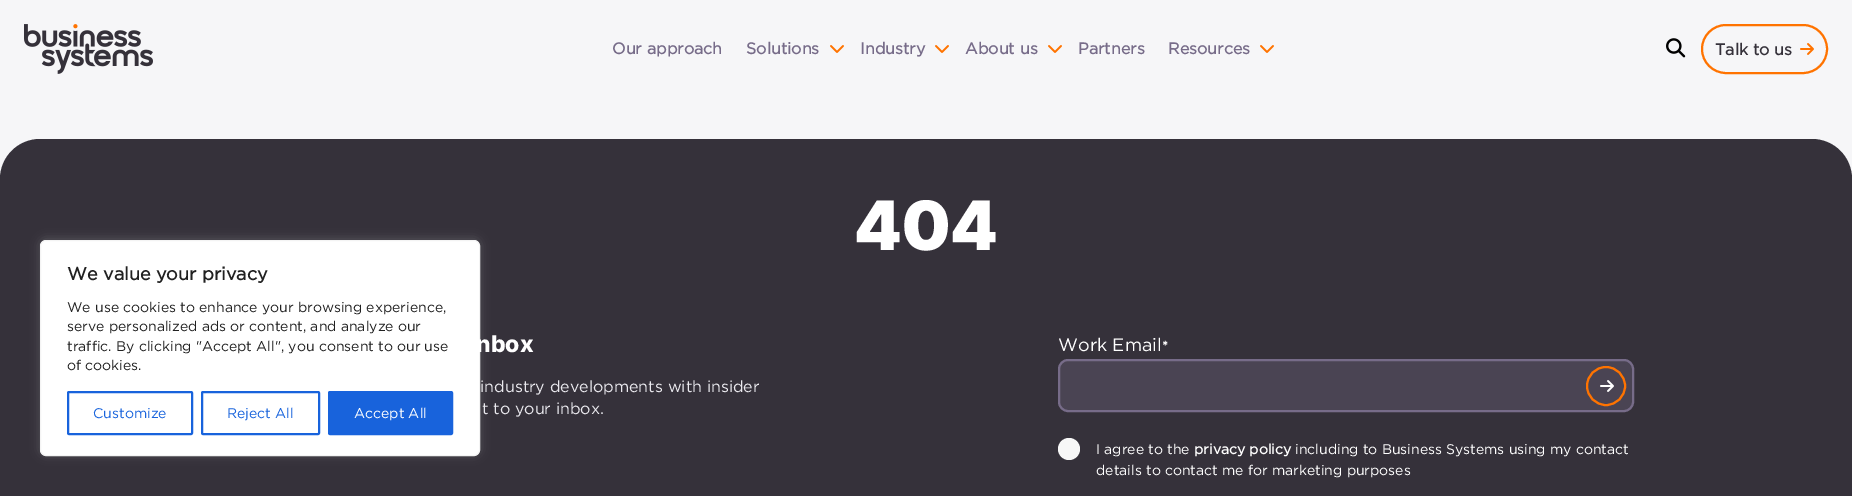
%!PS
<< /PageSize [1852 496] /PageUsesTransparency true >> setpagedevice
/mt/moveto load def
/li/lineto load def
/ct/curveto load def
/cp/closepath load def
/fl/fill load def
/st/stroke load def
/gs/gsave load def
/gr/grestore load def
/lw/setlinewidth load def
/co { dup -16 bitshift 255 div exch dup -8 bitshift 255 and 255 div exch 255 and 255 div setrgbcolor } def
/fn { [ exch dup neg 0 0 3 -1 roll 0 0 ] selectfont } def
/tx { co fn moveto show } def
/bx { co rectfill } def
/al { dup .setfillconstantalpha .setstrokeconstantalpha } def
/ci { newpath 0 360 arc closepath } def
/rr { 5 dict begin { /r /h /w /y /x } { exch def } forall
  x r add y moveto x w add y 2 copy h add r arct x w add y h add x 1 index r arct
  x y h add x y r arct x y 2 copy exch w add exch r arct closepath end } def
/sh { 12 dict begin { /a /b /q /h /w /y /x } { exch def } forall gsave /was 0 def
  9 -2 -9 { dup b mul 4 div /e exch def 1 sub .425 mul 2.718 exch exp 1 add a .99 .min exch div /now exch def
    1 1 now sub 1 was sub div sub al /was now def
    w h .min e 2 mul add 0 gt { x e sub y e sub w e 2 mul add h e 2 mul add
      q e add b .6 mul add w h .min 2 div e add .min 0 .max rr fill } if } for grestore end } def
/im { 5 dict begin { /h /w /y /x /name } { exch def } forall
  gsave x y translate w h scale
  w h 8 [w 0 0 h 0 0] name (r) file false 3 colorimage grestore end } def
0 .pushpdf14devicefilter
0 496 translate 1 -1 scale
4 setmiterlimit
0 0 1852 496 16#F6F6F8 bx
(media/1.raw) 24 24 129 50 im
(media/2.raw) 830 45 14 8 im
(media/2.raw) 935 45 14 8 im
(media/2.raw) 1048 45 14 8 im
(media/2.raw) 1260 45 14 8 im
(media/3.raw) 1666 38 20 20 im
16#FF7300 co
2 lw
1702 25 125 48 24 rr st
(media/4.raw) 1800 43 14 12 im
16#35313A co
40 139 mt 1812 139 li 1834 139 1852 157 1852 179 ct 1852 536 li 0 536 li 0 179 li 0 157 18 139 40 139 ct cp fl
16#ACABAB co
40 239 440 216 6 5 .3 sh
16#FFFFFF co
40.5 240.5 439 215 5.5 rr gs fl gr
16#F4F4F4 co
1 lw
st
16#1863DC co
2 lw
68 392 124 42 1 rr st
202 392 117 42 1 rr st
329 392 123 42 1 rr gs fl gr
st
16#4A4453 co
1059 360 574 51 9 rr gs fl gr
16#776C89 co
st
16#FF7300 co
1606 386 19 ci st
(media/5.raw) 1600 380 14 12 im
16#F7F7F7 co
1069 449 11 ci fl
(Our approach) 612 54 /Gotham-Bold 16 16#776C89 tx
(Solutions) 746 54 /Gotham-Bold 16 16#776C89 tx
(Industry) 860 54 /Gotham-Bold 16 16#776C89 tx
(About us) 965 54 /Gotham-Bold 16 16#776C89 tx
(Partners) 1078 54 /Gotham-Bold 16 16#776C89 tx
(Resources) 1168 54 /Gotham-Bold 16 16#776C89 tx
(Talk to us) 1715 55 /Gotham-Bold 16 16#35313A tx
(404) 854 250 /Inter-Black 68 16#FFFFFF tx
(We value your privacy) 67 280 /Gotham-Bold 18 16#212121 tx
(We use cookies to enhance your browsing experience,) 67 312 /Gotham-Regular 14 16#212121 tx
(serve personalized ads or content, and analyze our) 67 331 /Gotham-Regular 14 16#212121 tx
(traffic. By clicking "Accept All", you consent to our use) 67 351 /Gotham-Regular 14 16#212121 tx
(of cookies.) 67 370 /Gotham-Regular 14 16#212121 tx
(Customize) 93 418 /Gotham-Regular 14 16#1863DC tx
(Reject All) 227 418 /Gotham-Regular 14 16#1863DC tx
(Accept All) 354 418 /Gotham-Regular 14 16#FFFFFF tx
(nbox) 476 352 /Inter-ExtraBold 23 16#FFFFFF tx
(industry developments with insider) 480 392 /Gotham-Regular 16 16#EBEAEF tx
(t to your inbox.) 482 414 /Gotham-Regular 16 16#EBEAEF tx
(Work Email) 1058 351 /Gotham-Regular 18 16#FFFFFF tx
(*) 1162 351 /Gotham-Bold 14 16#FFFFFF tx
(I agree to the) 1096 454 /Gotham-Regular 14 16#FFFFFF tx
(privacy policy) 1194 454 /Gotham-Bold 14 16#FFFFFF tx
(including to Business Systems using my contact) 1295 454 /Gotham-Regular 14 16#FFFFFF tx
(details to contact me for marketing purposes) 1096 475 /Gotham-Regular 14 16#FFFFFF tx
.poppdf14devicefilter showpage
